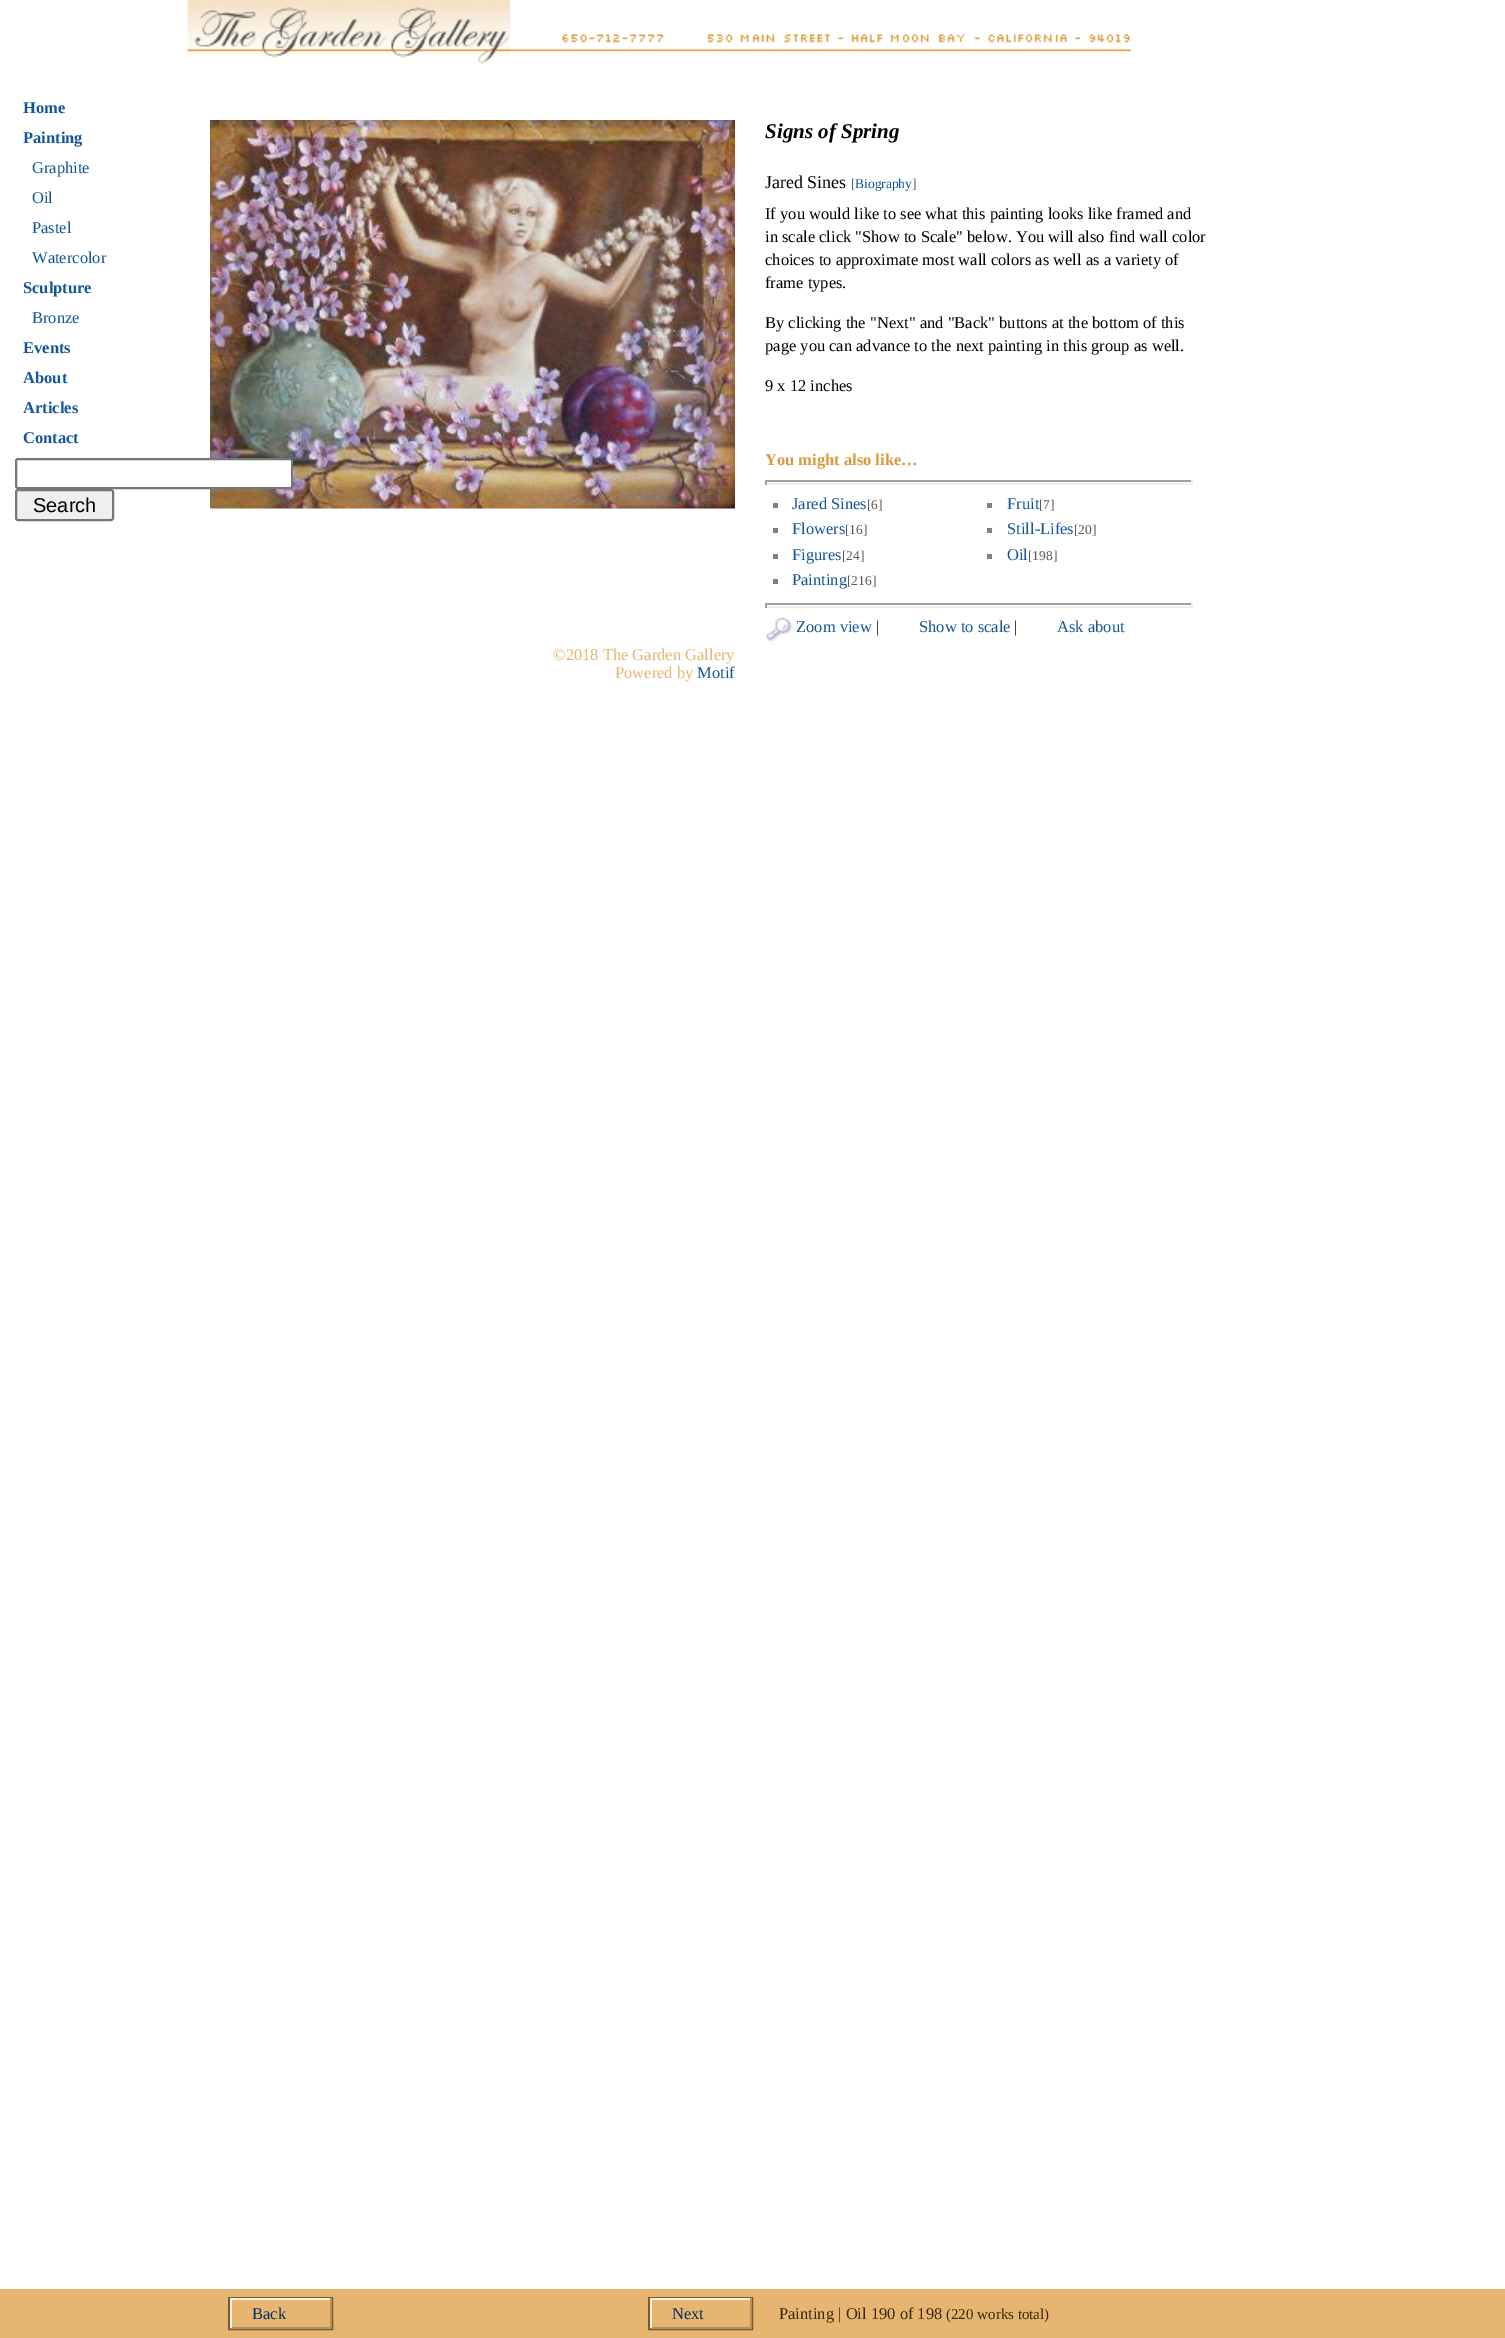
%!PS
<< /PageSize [1505 2338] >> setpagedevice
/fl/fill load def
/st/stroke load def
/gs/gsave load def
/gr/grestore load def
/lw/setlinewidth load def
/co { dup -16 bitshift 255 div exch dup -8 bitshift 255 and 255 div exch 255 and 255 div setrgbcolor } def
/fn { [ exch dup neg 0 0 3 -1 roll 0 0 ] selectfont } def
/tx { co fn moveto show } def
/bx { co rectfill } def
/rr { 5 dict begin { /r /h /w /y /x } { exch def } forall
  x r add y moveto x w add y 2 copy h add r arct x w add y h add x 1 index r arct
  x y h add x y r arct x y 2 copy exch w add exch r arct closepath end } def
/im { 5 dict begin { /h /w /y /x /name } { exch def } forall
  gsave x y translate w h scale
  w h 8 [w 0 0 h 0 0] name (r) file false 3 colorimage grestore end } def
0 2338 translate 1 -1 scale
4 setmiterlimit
0 0 1505 2338 16#FFFFFF bx
(media/1.raw) 187 0 323 64 im
(media/2.raw) 510 34 621 18 im
(media/3.raw) 210 120 525 389 im
16 459 276 29 2 rr gs fl gr
16#767676 co
2 lw
st
16#EFEFEF co
16 490 97 30 2 rr gs fl gr
16#767676 co
st
765 480 428 2 16#9F9F9F bx
1191 480 2 5 16#EEEEEE bx
765 483 428 2 16#EEEEEE bx
765 480 2 5 16#9F9F9F bx
773 503 5 5 16#808080 bx
987 503 5 5 16#808080 bx
773 528 5 5 16#808080 bx
987 528 5 5 16#808080 bx
773 554 5 5 16#808080 bx
987 554 5 5 16#808080 bx
773 579 5 5 16#808080 bx
765 603 428 2 16#9F9F9F bx
1191 603 2 5 16#EEEEEE bx
765 606 428 2 16#EEEEEE bx
765 603 2 5 16#9F9F9F bx
(media/4.raw) 766 617 26 25 im
0 2289 1505 49 16#E6B570 bx
16#735A38 co
229 2298 103 31 rectstroke
230 2298 102 2 16#FAF0E2 bx
330 2298 2 30 16#B8915A bx
230 2327 102 2 16#B8915A bx
230 2298 2 30 16#FAF0E2 bx
16#735A38 co
649 2298 103 31 rectstroke
650 2298 102 2 16#FAF0E2 bx
750 2298 2 30 16#B8915A bx
650 2327 102 2 16#B8915A bx
650 2298 2 30 16#FAF0E2 bx
(Home) 23 113 /LiberationSerif-Bold 16.5 16#125699 tx
(Painting) 23 143 /LiberationSerif-Bold 16.5 16#125699 tx
(Graphite) 32 173 /LiberationSerif-Regular 16.5 16#125699 tx
(Oil) 32 203 /LiberationSerif-Regular 16.5 16#125699 tx
(Pastel) 32 233 /LiberationSerif-Regular 16.5 16#125699 tx
(Watercolor) 32 263 /LiberationSerif-Regular 16.5 16#125699 tx
(Sculpture) 23 293 /LiberationSerif-Bold 16.5 16#125699 tx
(Bronze) 32 323 /LiberationSerif-Regular 16.5 16#125699 tx
(Events) 23 353 /LiberationSerif-Bold 16.5 16#125699 tx
(About) 23 383 /LiberationSerif-Bold 16.5 16#125699 tx
(Articles) 23 413 /LiberationSerif-Bold 16.5 16#125699 tx
(Contact) 23 443 /LiberationSerif-Bold 16.5 16#125699 tx
(Search) 33 512 /LiberationSans-Regular 20 16#000000 tx
(Signs of Spring) 765 138 /LiberationSerif-BoldItalic 21 16#000000 tx
(Jared Sines) 765 188 /LiberationSerif-Regular 18 16#000000 tx
([) 851 188 /LiberationSerif-Regular 13.5 16#605555 tx
(Biography) 855 188 /LiberationSerif-Regular 13.5 16#125699 tx
(]) 912 188 /LiberationSerif-Regular 13.5 16#605555 tx
(If you would like to see what this painting looks like framed and) 765 219 /LiberationSerif-Regular 16.5 16#000000 tx
(in scale click "Show to Scale" below. You will also find wall color) 765 242 /LiberationSerif-Regular 16.5 16#000000 tx
(choices to approximate most wall colors as well as a variety of) 765 265 /LiberationSerif-Regular 16.5 16#000000 tx
(frame types.) 765 288 /LiberationSerif-Regular 16.5 16#000000 tx
(By clicking the "Next" and "Back" buttons at the bottom of this) 765 328 /LiberationSerif-Regular 16.5 16#000000 tx
(page you can advance to the next painting in this group as well.) 765 351 /LiberationSerif-Regular 16.5 16#000000 tx
(9 x 12 inches) 765 391 /LiberationSerif-Regular 16.5 16#000000 tx
(You might also like…) 765 465 /LiberationSerif-Bold 16.5 16#DC9836 tx
(Jared Sines) 792 509 /LiberationSerif-Regular 16.5 16#125699 tx
([6]) 867 509 /LiberationSerif-Regular 13.5 16#605555 tx
(Fruit) 1007 509 /LiberationSerif-Regular 16.5 16#125699 tx
([7]) 1039 509 /LiberationSerif-Regular 13.5 16#605555 tx
(Flowers) 792 534 /LiberationSerif-Regular 16.5 16#125699 tx
([16]) 845 534 /LiberationSerif-Regular 13.5 16#605555 tx
(Still-Lifes) 1007 534 /LiberationSerif-Regular 16.5 16#125699 tx
([20]) 1074 534 /LiberationSerif-Regular 13.5 16#605555 tx
(Figures) 792 560 /LiberationSerif-Regular 16.5 16#125699 tx
([24]) 842 560 /LiberationSerif-Regular 13.5 16#605555 tx
(Oil) 1007 560 /LiberationSerif-Regular 16.5 16#125699 tx
([198]) 1028 560 /LiberationSerif-Regular 13.5 16#605555 tx
(Painting) 792 585 /LiberationSerif-Regular 16.5 16#125699 tx
([216]) 847 585 /LiberationSerif-Regular 13.5 16#605555 tx
(Zoom view) 796 632 /LiberationSerif-Regular 16.5 16#125699 tx
(|) 876 632 /LiberationSerif-Regular 16.5 16#000000 tx
(Show to scale) 919 632 /LiberationSerif-Regular 16.5 16#125699 tx
(|) 1014 632 /LiberationSerif-Regular 16.5 16#000000 tx
(Ask about) 1057 632 /LiberationSerif-Regular 16.5 16#125699 tx
(©2018 The Garden Gallery) 553 660 /LiberationSerif-Regular 16.5 16#E6B570 tx
(Powered by) 615 678 /LiberationSerif-Regular 16.5 16#E6B570 tx
(Motif) 697 678 /LiberationSerif-Regular 16.5 16#125699 tx
(Back) 252 2319 /LiberationSerif-Regular 16.5 16#003366 tx
(Next) 672 2319 /LiberationSerif-Regular 16.5 16#003366 tx
(Painting | Oil 190 of 198) 779 2319 /LiberationSerif-Regular 16.5 16#392811 tx
(\(220 works total\)) 946 2319 /LiberationSerif-Regular 15 16#392811 tx
showpage
